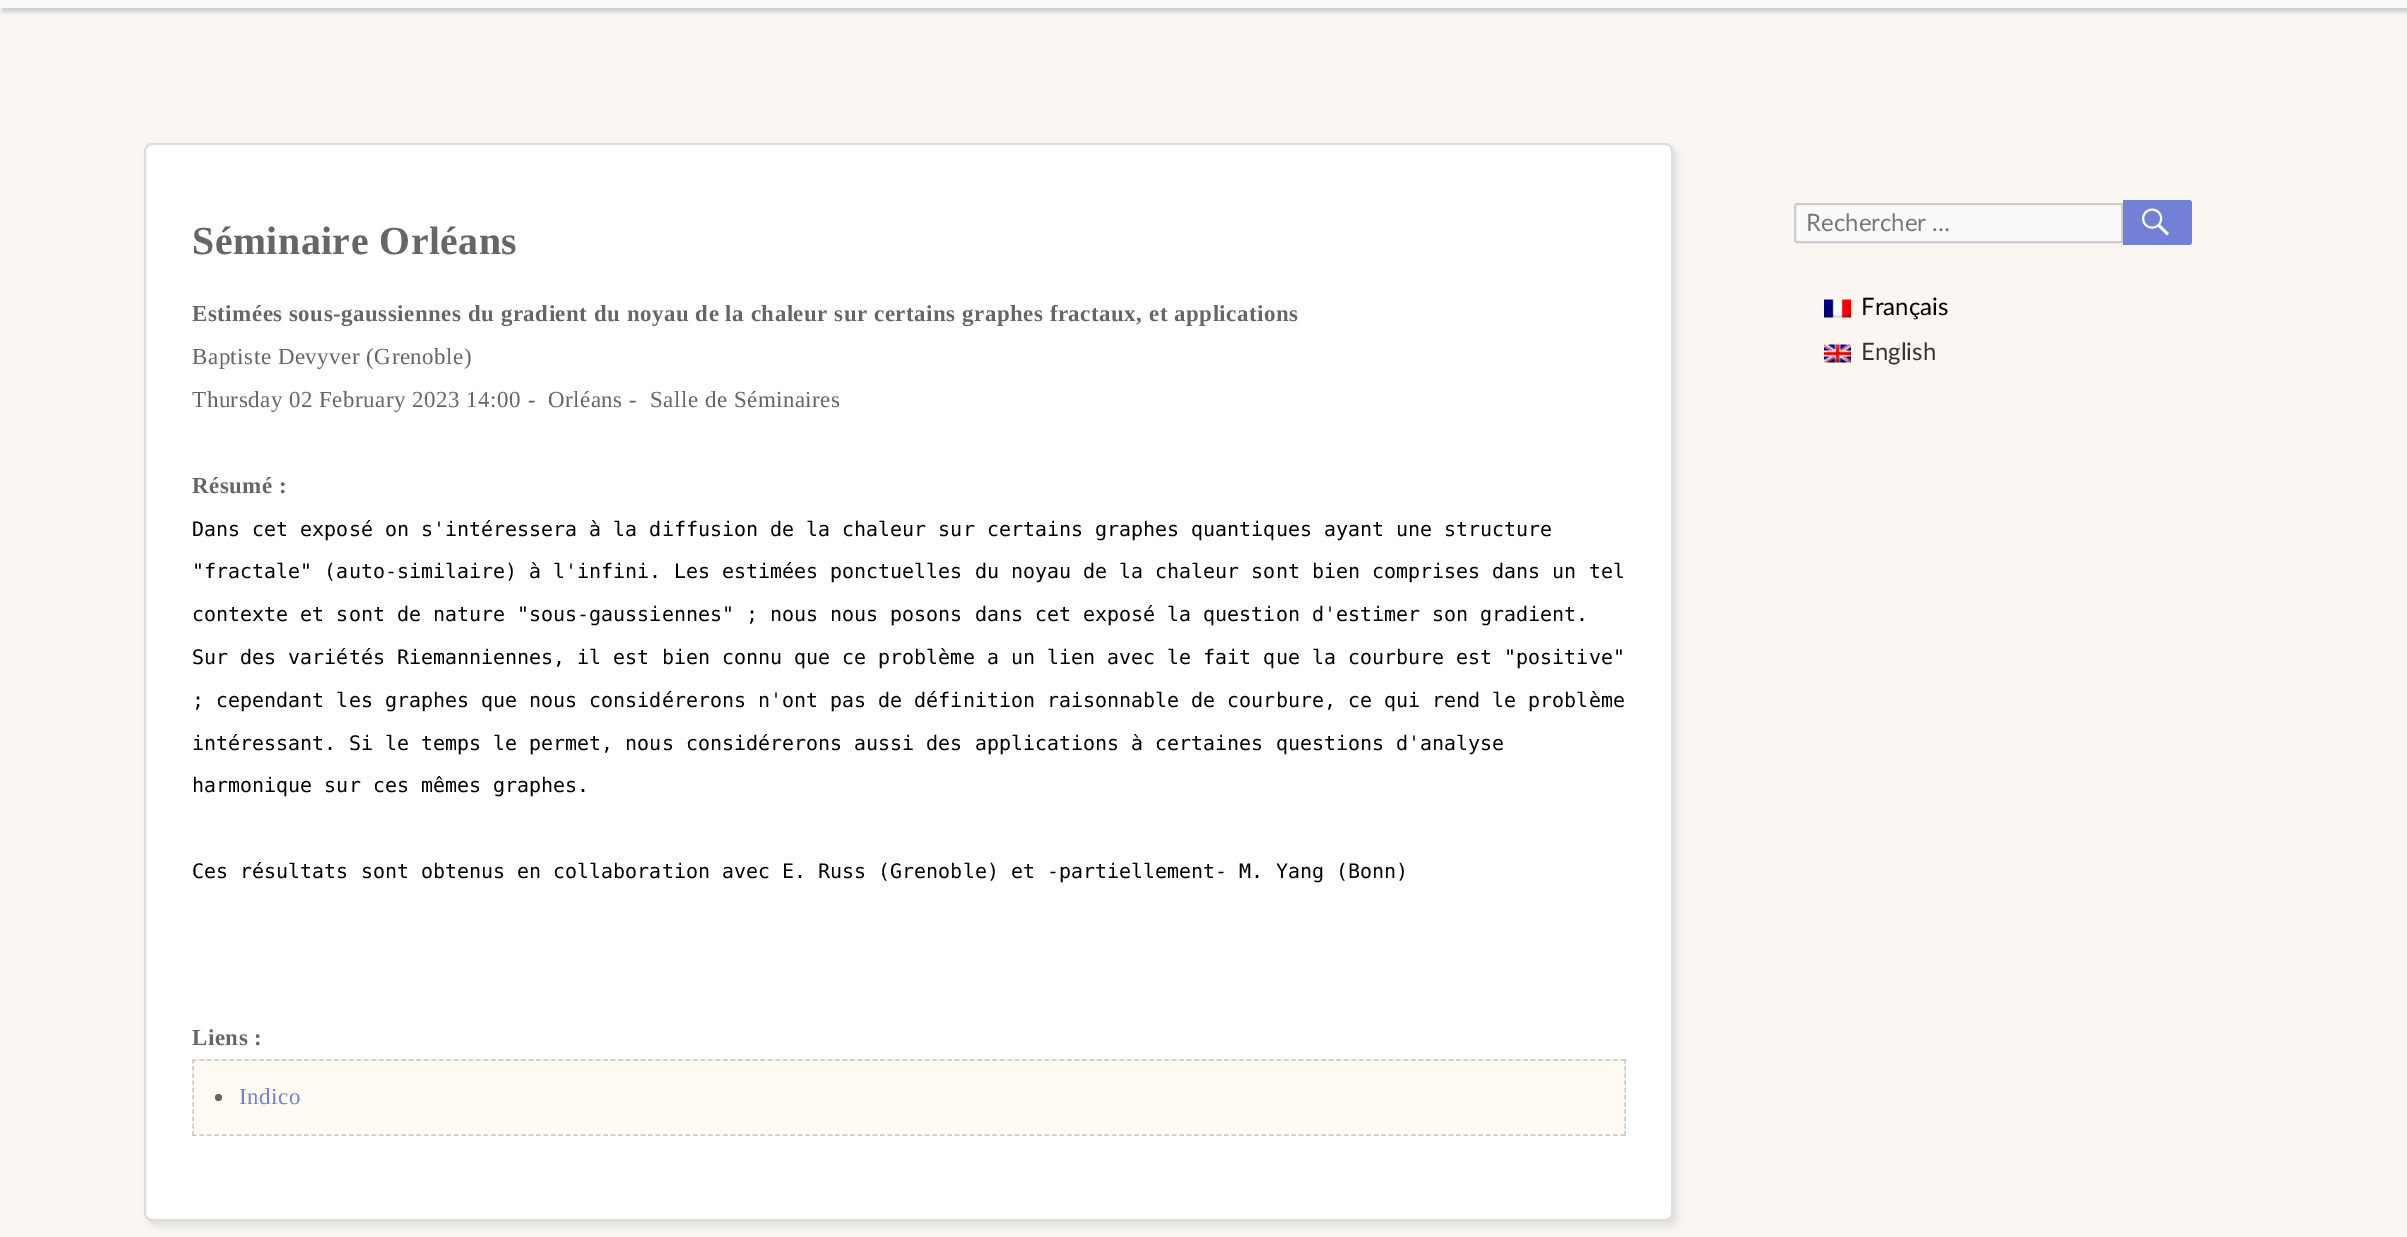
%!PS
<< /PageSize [2407 1237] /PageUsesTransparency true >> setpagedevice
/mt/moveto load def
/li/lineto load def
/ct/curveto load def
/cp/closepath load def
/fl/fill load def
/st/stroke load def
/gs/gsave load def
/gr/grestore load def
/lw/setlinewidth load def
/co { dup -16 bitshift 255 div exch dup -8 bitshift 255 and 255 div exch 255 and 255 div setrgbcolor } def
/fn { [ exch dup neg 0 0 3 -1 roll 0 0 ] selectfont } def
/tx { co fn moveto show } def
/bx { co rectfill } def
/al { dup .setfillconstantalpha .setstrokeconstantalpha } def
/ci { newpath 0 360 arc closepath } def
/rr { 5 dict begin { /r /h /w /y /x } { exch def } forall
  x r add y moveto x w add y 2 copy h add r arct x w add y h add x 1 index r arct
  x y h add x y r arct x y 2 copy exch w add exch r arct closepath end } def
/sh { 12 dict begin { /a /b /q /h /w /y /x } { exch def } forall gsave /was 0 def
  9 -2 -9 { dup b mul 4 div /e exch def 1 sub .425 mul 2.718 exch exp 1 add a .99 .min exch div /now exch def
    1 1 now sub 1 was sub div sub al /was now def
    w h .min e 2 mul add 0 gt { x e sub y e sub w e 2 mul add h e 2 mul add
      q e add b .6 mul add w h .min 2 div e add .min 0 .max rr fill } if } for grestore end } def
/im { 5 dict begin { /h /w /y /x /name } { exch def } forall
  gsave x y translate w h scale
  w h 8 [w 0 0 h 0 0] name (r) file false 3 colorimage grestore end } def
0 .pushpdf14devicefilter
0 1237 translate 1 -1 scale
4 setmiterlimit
0 0 2407 1237 16#FAF7F2 bx
16#CCCCCC co
2 -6 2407 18 0 2 1 sh
0 0 2407 8 16#FAFAFA bx
16#DDDDDD co
149 147 1528 1079 8 4 1 sh
16#FFFFFF co
145 144 1527 1076 7 rr gs fl gr
16#DDDDDD co
2 lw
st
192 1059 1434 77 16#FFFBF2 bx
16#CCCCCC co
1.5 lw
[4.5 2.98] 0 setdash
192 1060 mt 1626 1060 li st
[4.5 2.7] 0 setdash
1625 1059 mt 1625 1135.5 li st
[4.5 2.98] 0 setdash
192 1135 mt 1626 1135 li st
[4.5 2.7] 0 setdash
193 1059 mt 193 1135.5 li st
16#666666 co
218.5 1097.5 3.5 ci fl
16#FAFAFA co
1797 204 mt 2122 204 li 2122 242 li 1797 242 li 1796 242 1795 241 1795 240 ct 1795 206 li 1795 205 1796 204 1797 204 ct cp gs fl gr
16#CCCCCC co
2 lw
[] 0 setdash
st
16#7281D5 co
2123 200 mt 2189 200 li 2190.5 200 2192 201.5 2192 203 ct 2192 242 li 2192 243.5 2190.5 245 2189 245 ct 2123 245 li cp fl
(media/1.raw) 2142 208 27 28 im
(media/2.raw) 1824 299 27 19 im
(media/3.raw) 1824 344 27 19 im
/LiberationSerif-Bold 39.75 fn
16#666666 co
192 254 mt .51 0 (Séminaire Orléans) ashow
/LiberationSerif-Bold 22.95 fn
192 321 mt .51 0 (Estimées sous-gaussiennes du gradient du noyau de la chaleur sur certains graphes fractaux, et applications) ashow
/LiberationSerif-Regular 22.95 fn
192 364 mt .51 0 (Baptiste Devyver \(Grenoble\)) ashow
192 407 mt .51 0 (Thursday 02 February 2023 14:00 -) ashow
548 407 mt .51 0 (Orléans -) ashow
650 407 mt .51 0 (Salle de Séminaires) ashow
/LiberationSerif-Bold 22.95 fn
192 493 mt .51 0 (Résumé :) ashow
(Dans cet exposé on s'intéressera à la diffusion de la chaleur sur certains graphes quantiques ayant une structure) 192 536 /DejaVuSansMono-Regular 20 16#000000 tx
("fractale" \(auto-similaire\) à l'infini. Les estimées ponctuelles du noyau de la chaleur sont bien comprises dans un tel) 192 578 /DejaVuSansMono-Regular 20 16#000000 tx
(contexte et sont de nature "sous-gaussiennes" ; nous nous posons dans cet exposé la question d'estimer son gradient.) 192 621 /DejaVuSansMono-Regular 20 16#000000 tx
(Sur des variétés Riemanniennes, il est bien connu que ce problème a un lien avec le fait que la courbure est "positive") 192 664 /DejaVuSansMono-Regular 20 16#000000 tx
(; cependant les graphes que nous considérerons n'ont pas de définition raisonnable de courbure, ce qui rend le problème) 192 707 /DejaVuSansMono-Regular 20 16#000000 tx
(intéressant. Si le temps le permet, nous considérerons aussi des applications à certaines questions d'analyse) 192 750 /DejaVuSansMono-Regular 20 16#000000 tx
(harmonique sur ces mêmes graphes.) 192 792 /DejaVuSansMono-Regular 20 16#000000 tx
(Ces résultats sont obtenus en collaboration avec E. Russ \(Grenoble\) et -partiellement- M. Yang \(Bonn\)) 192 878 /DejaVuSansMono-Regular 20 16#000000 tx
/LiberationSerif-Bold 22.95 fn
16#666666 co
192 1045 mt .51 0 (Liens :) ashow
/LiberationSerif-Regular 22.95 fn
16#7281D5 co
239 1104 mt .51 0 (Indico) ashow
(Rechercher …) 1806 231 /Lato-Regular 24 16#777777 tx
(Français) 1861 315 /Lato-Regular 24 16#000000 tx
(English) 1861 360 /Lato-Regular 24 16#333333 tx
.poppdf14devicefilter showpage
